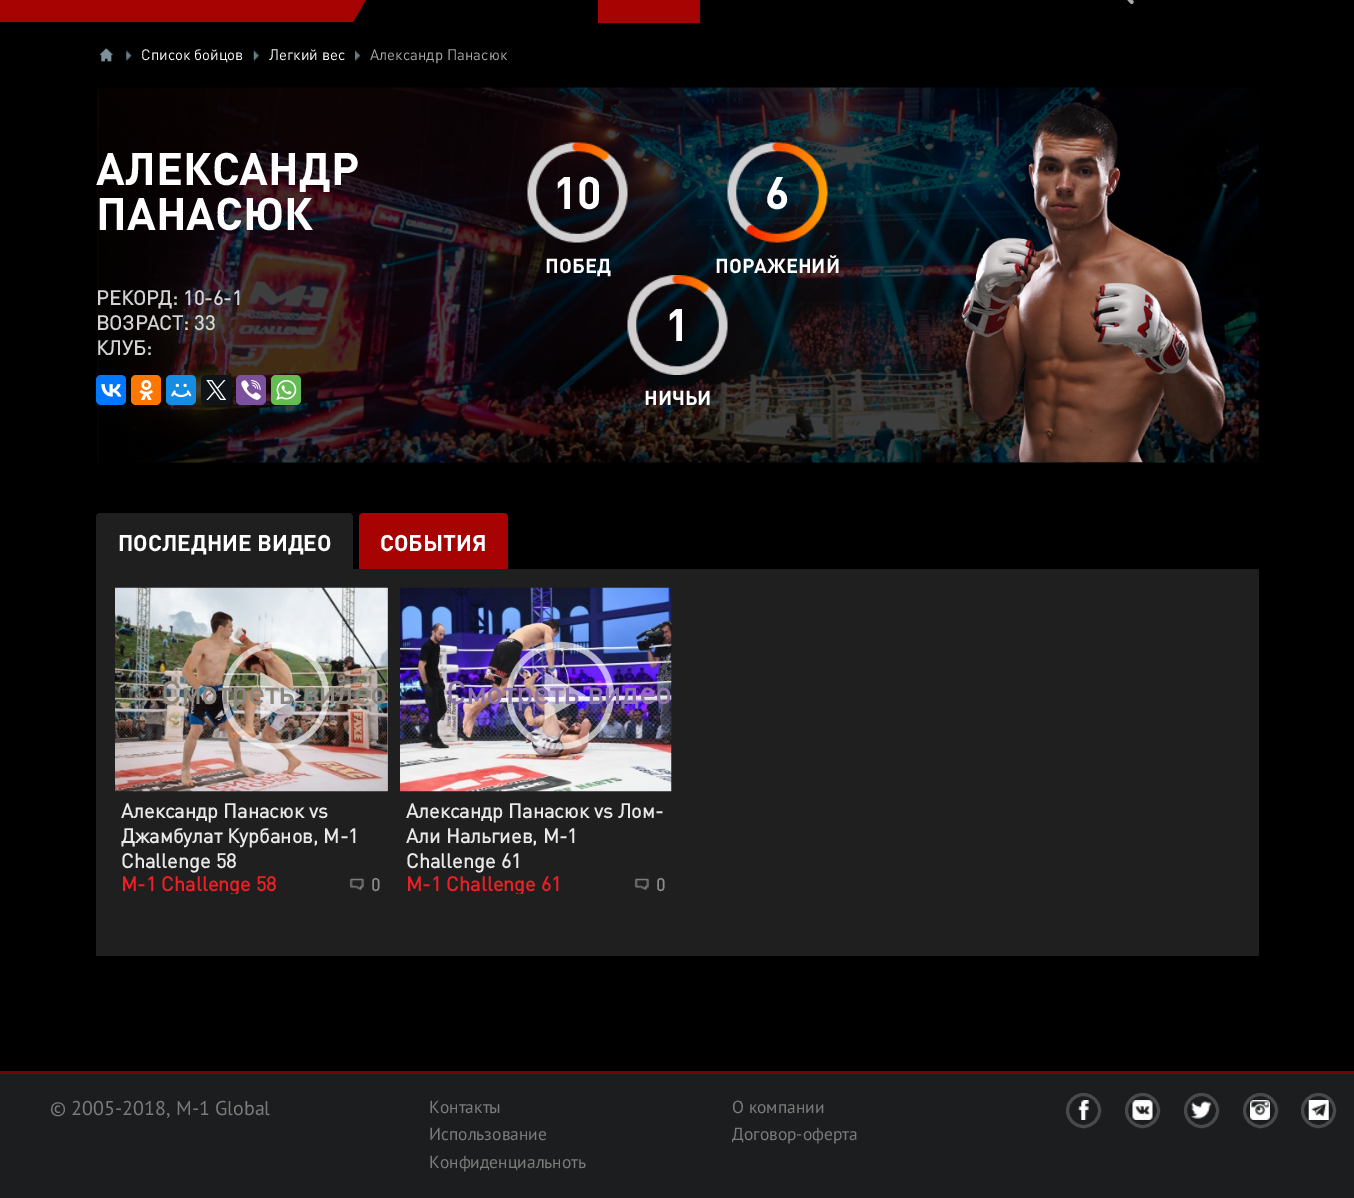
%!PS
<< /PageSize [1354 1198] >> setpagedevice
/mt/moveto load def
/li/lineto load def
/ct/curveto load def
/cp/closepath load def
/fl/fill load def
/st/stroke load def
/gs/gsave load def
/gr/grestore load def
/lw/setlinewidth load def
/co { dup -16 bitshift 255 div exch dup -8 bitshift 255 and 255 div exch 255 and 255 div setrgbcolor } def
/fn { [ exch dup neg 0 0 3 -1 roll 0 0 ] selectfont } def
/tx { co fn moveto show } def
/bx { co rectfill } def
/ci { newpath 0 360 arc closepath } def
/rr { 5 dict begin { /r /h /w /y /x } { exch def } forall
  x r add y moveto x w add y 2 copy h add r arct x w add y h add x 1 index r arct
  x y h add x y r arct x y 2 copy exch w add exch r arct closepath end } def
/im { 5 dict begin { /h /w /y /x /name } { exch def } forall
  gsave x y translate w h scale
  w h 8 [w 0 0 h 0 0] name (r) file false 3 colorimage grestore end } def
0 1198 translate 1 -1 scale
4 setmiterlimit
0 0 1354 1198 16#000000 bx
16#A80303 co
-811 -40 mt 389 -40 li 353 22 li -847 22 li cp fl
598 0 102 23 16#A80303 bx
(media/1.raw) 1127 0 7 4 im
(media/2.raw) 99 48 14 14 im
(media/3.raw) 126 50 6 12 im
(media/4.raw) 253 50 6 12 im
(media/5.raw) 355 50 5 12 im
(media/6.raw) 97 87 1162 376 im
16#0077FF co
96 375 30 30 5 rr fl
(media/7.raw) 101 384 21 13 im
16#FF7700 co
131 375 30 30 5 rr fl
(media/8.raw) 139 380 14 20 im
16#168DE2 co
166 375 30 30 5 rr fl
(media/9.raw) 171 383 21 15 im
16#0F1419 co
201 375 30 30 5 rr fl
(media/10.raw) 206 380 21 20 im
16#7B519D co
236 375 30 30 5 rr fl
(media/11.raw) 241 380 20 20 im
16#65BC54 co
271 375 30 30 5 rr fl
(media/12.raw) 276 380 21 20 im
(media/13.raw) 527 142 101 101 im
(media/14.raw) 727 142 101 101 im
(media/15.raw) 627 275 101 100 im
(media/16.raw) 961 102 265 361 im
16#1F1F1F co
100 513 mt 349 513 li 351 513 353 515 353 517 ct 353 569 li 96 569 li 96 517 li 96 515 98 513 100 513 ct cp fl
16#A80303 co
363 513 mt 504 513 li 506 513 508 515 508 517 ct 508 569 li 359 569 li 359 517 li 359 515 361 513 363 513 ct cp fl
96 569 1163 387 16#1F1F1F bx
387 588 1 203 16#95A5A6 bx
(media/17.raw) 115 587 273 205 im
(media/18.raw) 222 642 108 108 im
(media/19.raw) 349 878 15 13 im
(media/20.raw) 400 587 272 205 im
(media/21.raw) 506 641 109 109 im
(media/19.raw) 634 878 15 13 im
0 1074 1354 124 16#1C1D1E bx
0 1071 1354 3 16#770008 bx
(media/22.raw) 1078 1100 11 20 im
16#494A4B co
3 lw
1083.5 1110.5 16 ci st
(media/23.raw) 1132 1100 21 20 im
1142.5 1110.5 16 ci st
(media/24.raw) 1191 1101 21 18 im
1201.5 1110.5 16 ci st
(media/25.raw) 1250 1100 20 20 im
1260.5 1110.5 16 ci st
(media/26.raw) 1308 1100 21 20 im
1318.5 1110.5 16 ci st
(Список бойцов) 141 60 /DIN-Regular 15 16#FFFFFF tx
(Легкий вес) 269 60 /DIN-Regular 15 16#FFFFFF tx
(Александр Панасюк) 370 60 /DIN-Regular 15 16#AAAAAA tx
(АЛЕКСАНДР) 96 185 /DIN-Bold 45 16#FFFFFF tx
(ПАНАСЮК) 96 230 /DIN-Bold 45 16#FFFFFF tx
(РЕКОРД: 10-6-1) 96 305 /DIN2-Bold 20 16#D4D4D4 tx
(ВОЗРАСТ: 33) 96 330 /DIN2-Bold 20 16#D4D4D4 tx
(КЛУБ:) 96 355 /DIN2-Bold 20 16#D4D4D4 tx
(10) 553 209 /DIN-Bold 45 16#FFFFFF tx
(ПОБЕД) 545 273 /DIN-Bold 20 16#FFFFFF tx
(6) 765 209 /DIN-Bold 45 16#FFFFFF tx
(ПОРАЖЕНИЙ) 715 273 /DIN-Bold 20 16#FFFFFF tx
(1) 665 341 /DIN-Bold 45 16#FFFFFF tx
(НИЧЬИ) 644 405 /DIN-Bold 20 16#FFFFFF tx
(ПОСЛЕДНИЕ ВИДЕО) 118 551 /DIN-Bold 22.5 16#FFFFFF tx
(СОБЫТИЯ) 380 551 /DIN-Bold 22.5 16#FFFFFF tx
(Смотреть видео) 161 704 /DIN2-Bold 31.25 16#8A857D tx
(Александр Панасюк vs) 121 818 /DIN2-Bold 20 16#E9E9E9 tx
(Джамбулат Курбанов, M-1) 121 843 /DIN2-Bold 20 16#E9E9E9 tx
(Challenge 58) 121 868 /DIN2-Bold 20 16#E9E9E9 tx
gs
121 871 157 23 rectclip
(M-1 Challenge 58) 121 891 /DIN2-Bold 20 16#F11F25 tx
gr
(0) 371 891 /DIN2-Bold 17.5 16#8D8D8D tx
(Смотреть видео) 446 704 /DIN2-Bold 31.25 16#8A73AB tx
(Александр Панасюк vs Лом-) 406 818 /DIN2-Bold 20 16#E9E9E9 tx
(Али Нальгиев, M-1) 406 843 /DIN2-Bold 20 16#E9E9E9 tx
(Challenge 61) 406 868 /DIN2-Bold 20 16#E9E9E9 tx
gs
406 871 155 23 rectclip
(M-1 Challenge 61) 406 891 /DIN2-Bold 20 16#F11F25 tx
gr
(0) 656 891 /DIN2-Bold 17.5 16#8D8D8D tx
(© 2005-2018, M-1 Global) 50 1115 /PTSans-Regular 20 16#7B7B7B tx
(Контакты) 429 1113 /PTSans-Regular 17.5 16#7B7B7B tx
(Использование) 429 1140 /PTSans-Regular 17.5 16#7B7B7B tx
(Конфиденциальноть) 429 1168 /PTSans-Regular 17.5 16#7B7B7B tx
(О компании) 732 1113 /PTSans-Regular 17.5 16#7B7B7B tx
(Договор-оферта) 732 1140 /PTSans-Regular 17.5 16#7B7B7B tx
showpage
